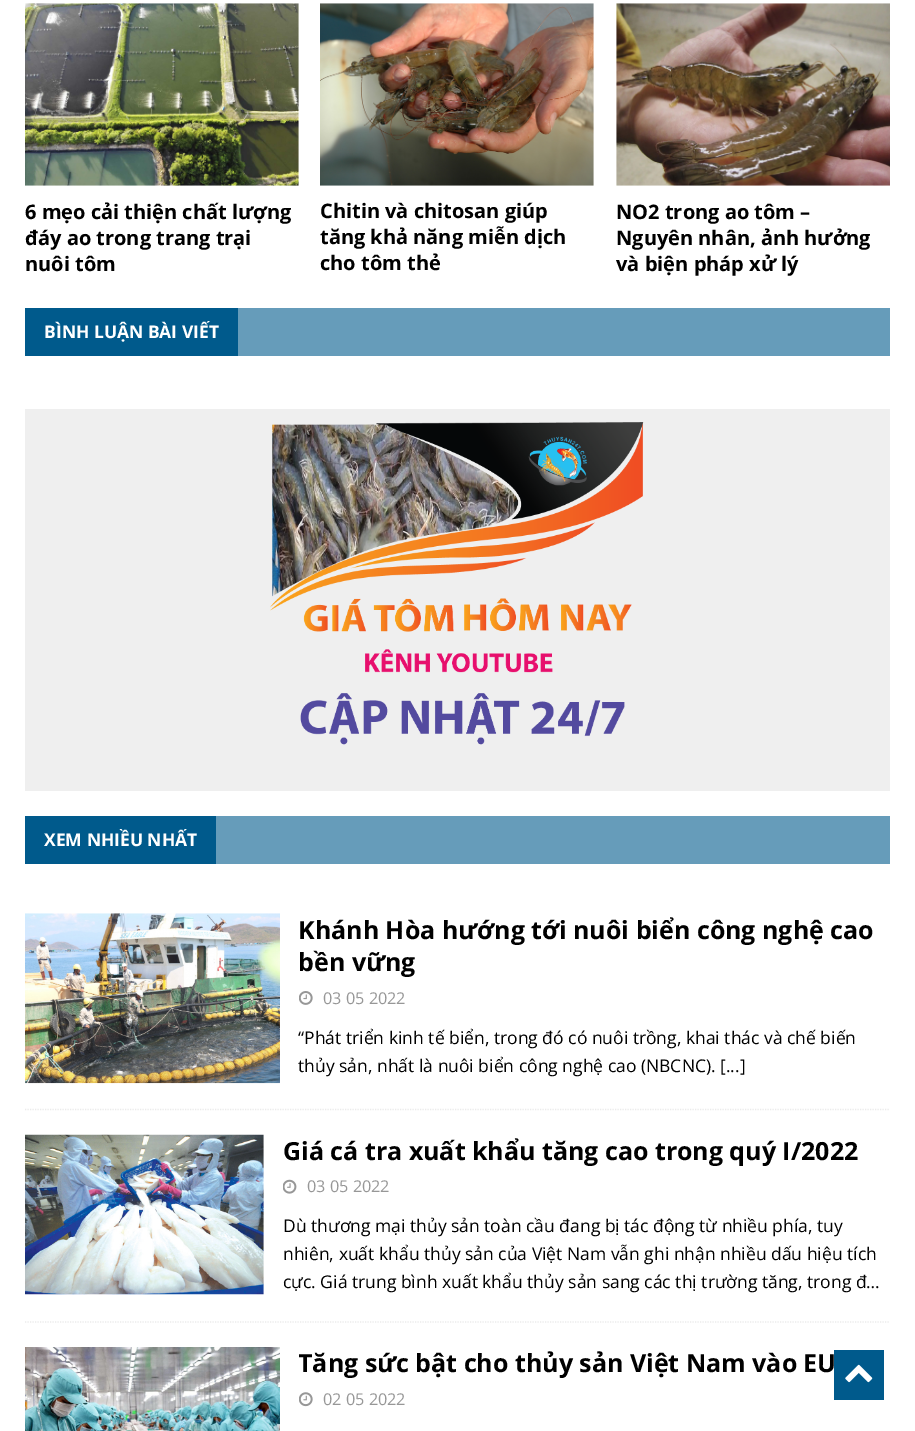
%!PS
<< /PageSize [915 1431] >> setpagedevice
/mt/moveto load def
/li/lineto load def
/st/stroke load def
/gs/gsave load def
/gr/grestore load def
/lw/setlinewidth load def
/co { dup -16 bitshift 255 div exch dup -8 bitshift 255 and 255 div exch 255 and 255 div setrgbcolor } def
/fn { [ exch dup neg 0 0 3 -1 roll 0 0 ] selectfont } def
/tx { co fn moveto show } def
/bx { co rectfill } def
/im { 5 dict begin { /h /w /y /x /name } { exch def } forall
  gsave x y translate w h scale
  w h 8 [w 0 0 h 0 0] name (r) file false 3 colorimage grestore end } def
0 1431 translate 1 -1 scale
4 setmiterlimit
0 0 915 1431 16#FFFFFF bx
(media/1.raw) 25 3 274 183 im
(media/2.raw) 320 3 274 183 im
(media/3.raw) 616 3 274 183 im
238 308 652 48 16#669CBA bx
25 308 213 48 16#005A8C bx
25 409 865 382 16#EFEFEF bx
(media/4.raw) 270 422 374 323 im
216 816 674 48 16#669CBA bx
25 816 191 48 16#005A8C bx
16#EBEBEB co
1.2 lw
[1.25 1.25] 0 setdash
25 1109.5 mt 890 1109.5 li st
(media/5.raw) 25 913 255 171 im
(media/6.raw) 299 991 14 14 im
25 1322 mt 890 1322 li st
(media/7.raw) 25 1134 239 161 im
(media/8.raw) 283 1179 14 15 im
(media/9.raw) 25 1347 255 84 im
(media/10.raw) 299 1392 14 15 im
(6 mẹo cải thiện chất lượng) 25 219 /OpenSans-Bold 20 16#000000 tx
(đáy ao trong trang trại) 25 245 /OpenSans-Bold 20 16#000000 tx
(nuôi tôm) 25 271 /OpenSans-Bold 20 16#000000 tx
(Chitin và chitosan giúp) 320 218 /OpenSans-Bold 20 16#000000 tx
(tăng khả năng miễn dịch) 320 244 /OpenSans-Bold 20 16#000000 tx
(cho tôm thẻ) 320 270 /OpenSans-Bold 20 16#000000 tx
(NO2 trong ao tôm –) 616 219 /OpenSans-Bold 20 16#000000 tx
(Nguyên nhân, ảnh hưởng) 616 245 /OpenSans-Bold 20 16#000000 tx
(và biện pháp xử lý) 616 271 /OpenSans-Bold 20 16#000000 tx
(BÌNH LUẬN BÀI VIẾT) 44 338 /OpenSans-Bold 17.5 16#FFFFFF tx
(XEM NHIỀU NHẤT) 44 846 /OpenSans-Bold 17.5 16#FFFFFF tx
(Khánh Hòa hướng tới nuôi biển công nghệ cao) 298 939 /OpenSans-Bold 25 16#000000 tx
(bền vững) 298 971 /OpenSans-Bold 25 16#000000 tx
(03 05 2022) 323 1004 /OpenSans-Regular 16.25 16#979797 tx
(“Phát triển kinh tế biển, trong đó có nuôi trồng, khai thác và chế biến) 298 1044 /OpenSans-Regular 17.5 16#000000 tx
(thủy sản, nhất là nuôi biển công nghệ cao \(NBCNC\). [...]) 298 1072 /OpenSans-Regular 17.5 16#000000 tx
(Giá cá tra xuất khẩu tăng cao trong quý I/2022) 283 1160 /OpenSans-Bold 25 16#000000 tx
(03 05 2022) 307 1192 /OpenSans-Regular 16.25 16#979797 tx
(Dù thương mại thủy sản toàn cầu đang bị tác động từ nhiều phía, tuy) 283 1232 /OpenSans-Regular 17.5 16#000000 tx
(nhiên, xuất khẩu thủy sản của Việt Nam vẫn ghi nhận nhiều dấu hiệu tích) 283 1260 /OpenSans-Regular 17.5 16#000000 tx
(cực. Giá trung bình xuất khẩu thủy sản sang các thị trường tăng, trong đ…) 283 1288 /OpenSans-Regular 17.5 16#000000 tx
gs
299 1348 591 65 rectclip
(Tăng sức bật cho thủy sản Việt Nam vào EU) 298 1372 /OpenSans-Bold 25 16#000000 tx
gr
(02 05 2022) 323 1405 /OpenSans-Regular 16.25 16#979797 tx
834 1350 50 50 16#005A8C bx
(media/11.raw) 845 1364 28 19 im
showpage
